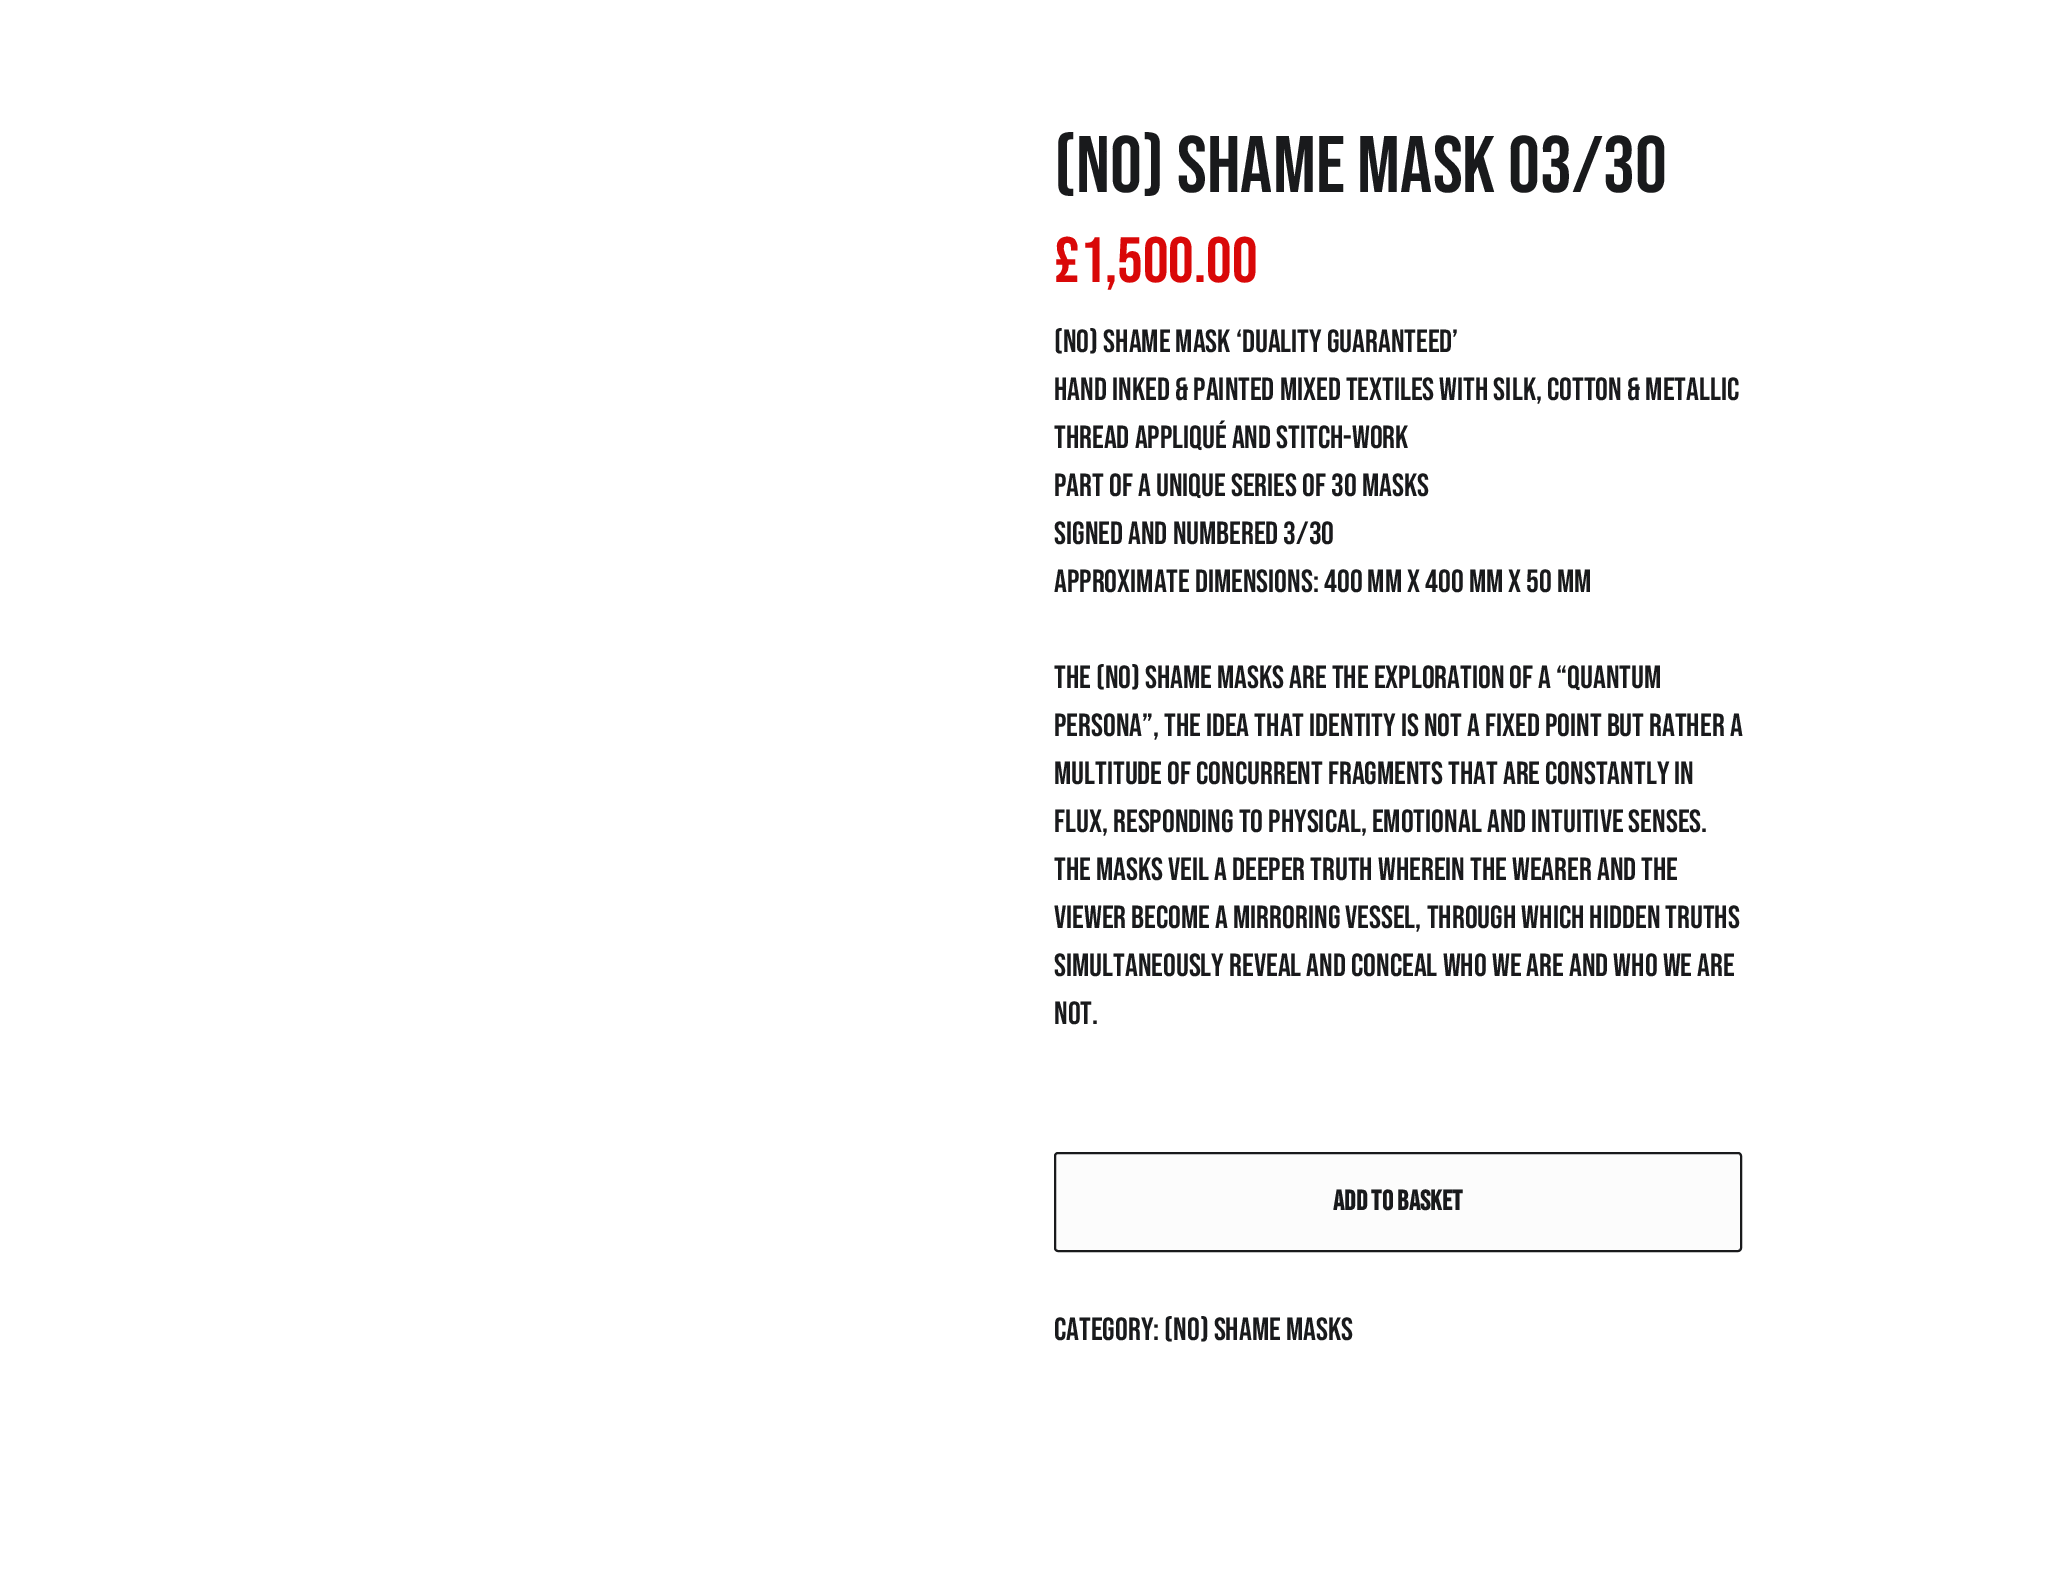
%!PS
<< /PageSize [2050 1572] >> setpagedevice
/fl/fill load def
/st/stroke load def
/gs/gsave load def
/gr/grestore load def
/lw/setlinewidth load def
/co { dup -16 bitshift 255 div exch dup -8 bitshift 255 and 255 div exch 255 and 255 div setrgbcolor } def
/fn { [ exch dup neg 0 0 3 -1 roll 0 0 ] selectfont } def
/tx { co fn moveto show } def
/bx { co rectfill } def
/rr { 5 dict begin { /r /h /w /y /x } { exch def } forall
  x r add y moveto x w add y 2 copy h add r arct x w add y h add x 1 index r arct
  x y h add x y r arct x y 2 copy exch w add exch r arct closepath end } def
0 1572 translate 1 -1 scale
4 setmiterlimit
0 0 2050 1572 16#FFFFFF bx
16#FCFCFC co
1055 1153 686 98 3 rr gs fl gr
16#191A1C co
2 lw
st
(\(no\) shame mask 03/30) 1054 192 /BebasNeue-Regular 80 16#191A1C tx
(£1,500.00) 1054 282 /BebasNeue-Regular 64 16#D90808 tx
(\(No\) Shame Mask ‘Duality Guaranteed’) 1054 352 /BebasNeue-Regular 32 16#191A1C tx
(Hand inked & painted mixed textiles with silk, cotton & metallic) 1054 400 /BebasNeue-Regular 32 16#191A1C tx
(thread appliqué and stitch-work) 1054 448 /BebasNeue-Regular 32 16#191A1C tx
(Part of a unique series of 30 masks) 1054 496 /BebasNeue-Regular 32 16#191A1C tx
(Signed and numbered 3/30) 1054 544 /BebasNeue-Regular 32 16#191A1C tx
(Approximate dimensions: 400 mm x 400 mm x 50 mm) 1054 592 /BebasNeue-Regular 32 16#191A1C tx
(The \(No\) Shame Masks are the exploration of a “quantum) 1054 688 /BebasNeue-Regular 32 16#191A1C tx
(persona”, the idea that identity is not a fixed point but rather a) 1054 736 /BebasNeue-Regular 32 16#191A1C tx
(multitude of concurrent fragments that are constantly in) 1054 784 /BebasNeue-Regular 32 16#191A1C tx
(flux, responding to physical, emotional and intuitive senses.) 1054 832 /BebasNeue-Regular 32 16#191A1C tx
(The masks veil a deeper truth wherein the wearer and the) 1054 880 /BebasNeue-Regular 32 16#191A1C tx
(viewer become a mirroring vessel, through which hidden truths) 1054 928 /BebasNeue-Regular 32 16#191A1C tx
(simultaneously reveal and conceal who we are and who we are) 1054 976 /BebasNeue-Regular 32 16#191A1C tx
(not.) 1054 1024 /BebasNeue-Regular 32 16#191A1C tx
(Add to basket) 1333 1210 /BebasNeue-Bold 28 16#191A1C tx
(Category: \(No\) Shame Masks) 1054 1340 /BebasNeue-Regular 32 16#191A1C tx
showpage
